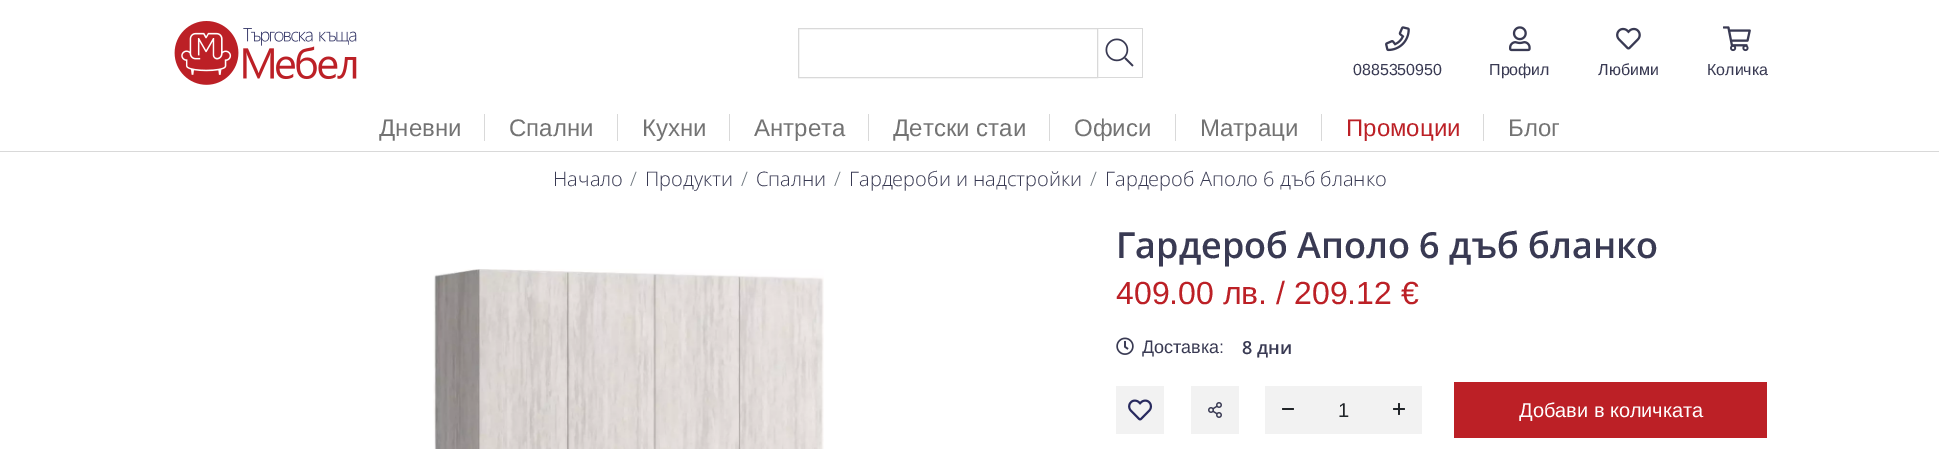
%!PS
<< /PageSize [1939 449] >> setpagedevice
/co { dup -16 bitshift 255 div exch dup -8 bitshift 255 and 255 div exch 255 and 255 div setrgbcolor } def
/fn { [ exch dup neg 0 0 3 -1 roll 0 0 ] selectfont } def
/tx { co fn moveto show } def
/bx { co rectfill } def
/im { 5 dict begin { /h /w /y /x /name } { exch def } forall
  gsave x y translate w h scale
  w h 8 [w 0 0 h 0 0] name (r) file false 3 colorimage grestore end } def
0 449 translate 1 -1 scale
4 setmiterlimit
0 0 1939 449 16#FFFFFF bx
0 151 1939 1 16#D9D9D9 bx
(media/1.raw) 174 21 183 64 im
798.5 28.5 299 49 rectstroke
1098 28 45 1 16#D9D9D9 bx
1142 28 1 50 16#D9D9D9 bx
1098 77 45 1 16#D9D9D9 bx
(media/2.raw) 1105 38 29 29 im
(media/3.raw) 1385 26 25 26 im
(media/4.raw) 1509 26 22 26 im
(media/5.raw) 1616 27 25 23 im
(media/6.raw) 1723 26 28 26 im
484 114 1 27 16#D9D9D9 bx
617 114 1 27 16#D9D9D9 bx
729 114 1 27 16#D9D9D9 bx
868 114 1 27 16#D9D9D9 bx
1049 114 1 27 16#D9D9D9 bx
1175 114 1 27 16#D9D9D9 bx
1321 114 1 27 16#D9D9D9 bx
1483 114 1 27 16#D9D9D9 bx
(media/7.raw) 433 269 391 180 im
(media/8.raw) 1116 337 18 18 im
1116 386 48 48 16#F2F2F2 bx
(media/9.raw) 1128 399 25 22 im
1191 386 48 48 16#F2F2F2 bx
(media/10.raw) 1208 402 14 16 im
1265 386 157 48 16#F2F2F2 bx
(media/11.raw) 1282 408 12 2 im
(media/12.raw) 1393 403 12 12 im
1454 382 313 56 16#BC2026 bx
(0885350950) 1353 75 /LiberationSans-Regular 16 16#393A53 tx
(Профил) 1489 75 /LiberationSans-Regular 16 16#393A53 tx
(Любими) 1598 75 /LiberationSans-Regular 16 16#393A53 tx
(Количка) 1707 75 /LiberationSans-Regular 16 16#393A53 tx
(Дневни) 379 136 /LiberationSans-Regular 24 16#737373 tx
(Спални) 509 136 /LiberationSans-Regular 24 16#737373 tx
(Кухни) 642 136 /LiberationSans-Regular 24 16#737373 tx
(Антрета) 754 136 /LiberationSans-Regular 24 16#737373 tx
(Детски стаи) 893 136 /LiberationSans-Regular 24 16#737373 tx
(Офиси) 1074 136 /LiberationSans-Regular 24 16#737373 tx
(Матраци) 1200 136 /LiberationSans-Regular 24 16#737373 tx
(Промоции) 1346 136 /LiberationSans-Regular 24 16#BC2026 tx
(Блог) 1508 136 /LiberationSans-Regular 24 16#737373 tx
(Начало) 553 186 /OpenSans-Light 20 16#393A53 tx
(/) 630 186 /OpenSans-Light 20 16#6C757D tx
(Продукти) 645 186 /OpenSans-Light 20 16#393A53 tx
(/) 741 186 /OpenSans-Light 20 16#6C757D tx
(Спални) 756 186 /OpenSans-Light 20 16#393A53 tx
(/) 834 186 /OpenSans-Light 20 16#6C757D tx
(Гардероби и надстройки) 849 186 /OpenSans-Light 20 16#393A53 tx
(/) 1090 186 /OpenSans-Light 20 16#6C757D tx
(Гардероб Аполо 6 дъб бланко) 1105 186 /OpenSans-Light 20 16#393A53 tx
(Гардероб Аполо 6 дъб бланко) 1116 258 /OpenSans-SemiBold 36 16#393A53 tx
(409.00 лв. / 209.12 €) 1116 304 /LiberationSans-Regular 32 16#BC2026 tx
(Доставка:) 1142 353 /LiberationSans-Regular 18 16#393A53 tx
(8 дни) 1242 354 /OpenSans-SemiBold 18 16#393A53 tx
(1) 1338 417 /LiberationSans-Regular 20 16#212529 tx
(Добави в количката) 1519 417 /LiberationSans-Regular 20 16#FFFFFF tx
showpage
